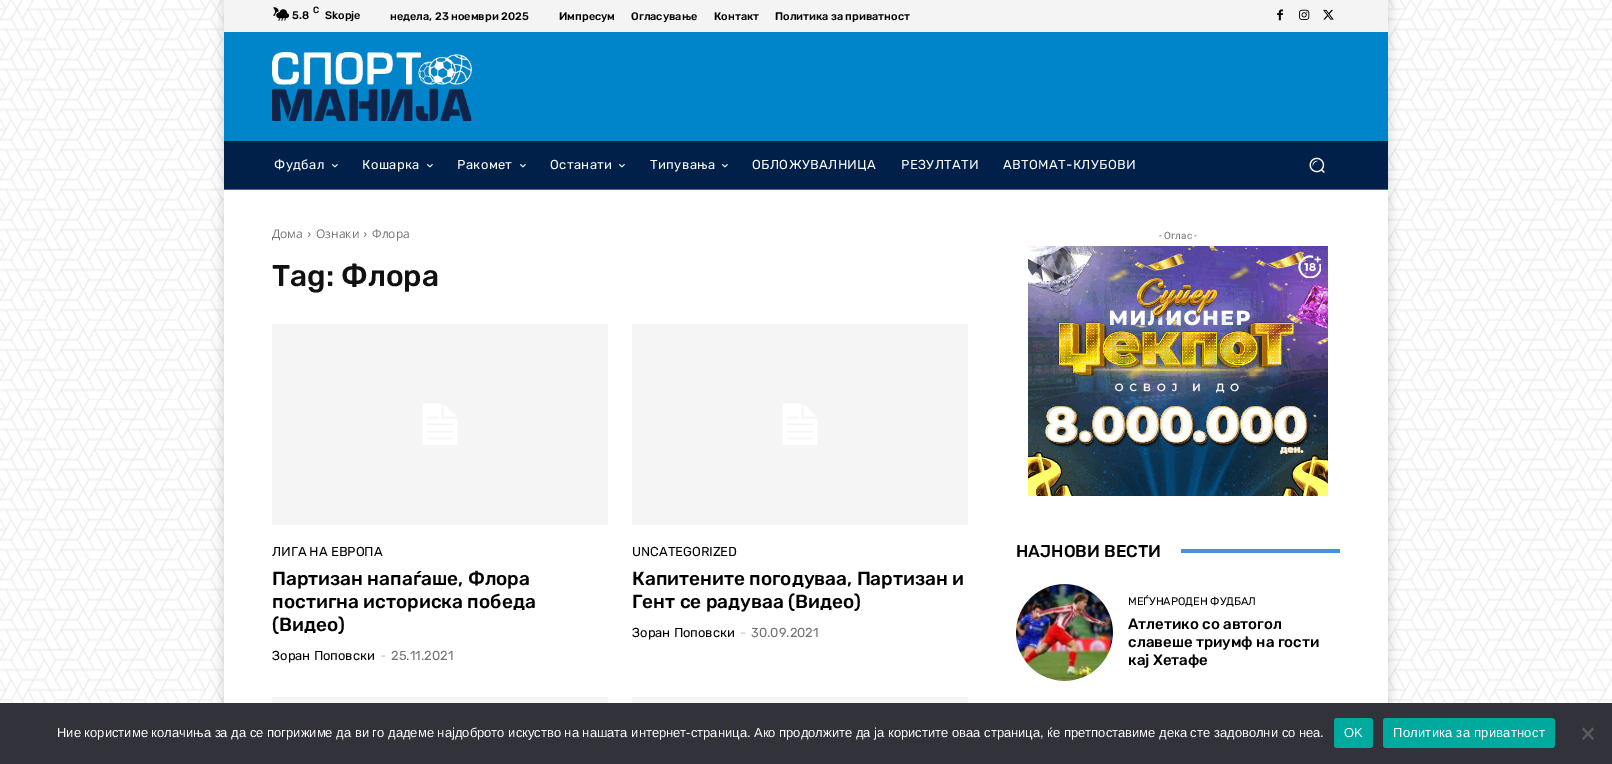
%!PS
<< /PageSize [1612 764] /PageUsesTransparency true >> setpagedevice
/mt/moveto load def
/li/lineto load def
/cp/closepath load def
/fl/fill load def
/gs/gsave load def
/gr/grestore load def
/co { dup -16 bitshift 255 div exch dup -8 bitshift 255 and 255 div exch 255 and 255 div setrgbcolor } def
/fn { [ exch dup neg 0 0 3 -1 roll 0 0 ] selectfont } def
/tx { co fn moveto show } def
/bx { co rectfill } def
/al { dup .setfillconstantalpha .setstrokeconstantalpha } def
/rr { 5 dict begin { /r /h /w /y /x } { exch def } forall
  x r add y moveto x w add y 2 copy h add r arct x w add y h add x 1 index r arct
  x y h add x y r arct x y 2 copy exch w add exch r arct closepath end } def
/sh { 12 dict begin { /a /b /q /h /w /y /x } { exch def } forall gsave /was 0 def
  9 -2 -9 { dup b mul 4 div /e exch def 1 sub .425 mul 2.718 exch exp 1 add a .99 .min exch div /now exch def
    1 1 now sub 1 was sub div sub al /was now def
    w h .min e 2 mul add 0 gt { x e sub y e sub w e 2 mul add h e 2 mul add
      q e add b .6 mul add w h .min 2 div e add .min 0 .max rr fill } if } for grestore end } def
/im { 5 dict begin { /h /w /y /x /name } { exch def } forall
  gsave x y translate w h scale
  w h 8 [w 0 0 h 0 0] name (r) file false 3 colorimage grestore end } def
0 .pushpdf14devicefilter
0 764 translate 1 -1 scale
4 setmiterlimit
0 0 1612 764 16#FFFFFF bx
(media/1.raw) 0 0 1612 703 im
16#000000 co
221 197 1170 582 0 5 .12 sh
224 200 1164 503 16#FFFFFF bx
16#000000 co
221 -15 1170 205 0 5 .12 sh
224 0 1164 32 16#F4F4F4 bx
(media/2.raw) 273 7 17 14 im
(media/3.raw) 1277 9 6 12 im
(media/4.raw) 1299 9 11 11 im
(media/5.raw) 1323 9 11 11 im
gs 224 32 mt 1388 32 li 1388 200 li 224 200 li cp clip newpath
<< /ShadingType 2 /ColorSpace /DeviceRGB /Coords [806 200 806 0] /Extend [true true] /Function << /FunctionType 3 /Domain [0 1] /Functions [<< /FunctionType 2 /Domain [0 1] /C0 [1 1 1] /C1 [1 1 1] /N 1 >> << /FunctionType 2 /Domain [0 1] /C0 [1 1 1] /C1 [0 .522 .792] /N 1 >> << /FunctionType 2 /Domain [0 1] /C0 [0 .522 .792] /C1 [0 .522 .792] /N 1 >>] /Bounds [.16 .27] /Encode [0 1 0 1 0 1] >> >> shfill gr
(media/6.raw) 272 52 200 69 im
224 141 1164 48 16#00204A bx
(media/7.raw) 332 164 6 4 im
(media/7.raw) 427 164 6 4 im
(media/7.raw) 520 164 6 4 im
(media/7.raw) 619 164 6 4 im
(media/7.raw) 722 164 6 4 im
(media/8.raw) 1309 157 16 16 im
224 189 1164 1 16#0085CA bx
(media/9.raw) 308 232 3 5 im
(media/9.raw) 364 232 3 5 im
(media/10.raw) 272 324 336 201 im
(media/11.raw) 632 324 336 201 im
272 697 336 6 16#F5F5F5 bx
632 697 336 6 16#F5F5F5 bx
(media/12.raw) 1028 246 300 250 im
1181 549 159 4 16#478FE0 bx
(media/13.raw) 1016 584 97 97 im
0 703 1612 61 16#32323A bx
16#00A99D co
1334 718 39 30 3 rr fl
1383 718 172 30 3 rr fl
16#59595D co
1592.5 727.5 mt 1594 729 li 1583.5 740 li 1582 738.5 li cp fl
1582 729 mt 1583.5 727.5 li 1594 738.5 li 1592.5 740 li cp fl
(C) 313 13 /Rubik-Medium 9 16#000000 tx
(5.8) 292 19 /Rubik-Medium 11 16#000000 tx
(Skopje) 325 19 /Rubik-Medium 11 16#000000 tx
(недела, 23 ноември 2025) 390 20 /Rubik-Medium 11 16#000000 tx
(Импресум) 559 20 /Rubik-Medium 11 16#000000 tx
(Огласување) 631 20 /Rubik-Medium 11 16#000000 tx
(Контакт) 714 20 /Rubik-Medium 11 16#000000 tx
(Политика за приватност) 775 20 /Rubik-Medium 11 16#000000 tx
/Rubik-Regular 13 fn
16#FFFFFF co
274 169 mt .4 0 (Фудбал) ashow
362 169 mt .4 0 (Кошарка) ashow
457 169 mt .4 0 (Ракомет) ashow
550 169 mt .4 0 (Останати) ashow
650 169 mt .4 0 (Типувања) ashow
752 169 mt .4 0 (ОБЛОЖУВАЛНИЦА) ashow
901 169 mt .4 0 (РЕЗУЛТАТИ) ashow
1003 169 mt .4 0 (АВТОМАТ-КЛУБОВИ) ashow
(Дома) 272 238 /OpenSans-Regular 12 16#747474 tx
(Ознаки) 316 238 /OpenSans-Regular 12 16#747474 tx
(Флора) 372 238 /OpenSans-Regular 12 16#747474 tx
(Tag: Флора) 272 286 /Rubik-Medium 30 16#111111 tx
(ЛИГА НА ЕВРОПА) 272 556 /Rubik-Regular 13 16#000000 tx
(Партизан напаѓаше, Флора) 272 585 /Rubik-Medium 19 16#000000 tx
(постигна историска победа) 272 608 /Rubik-Medium 19 16#000000 tx
(\(Видео\)) 272 631 /Rubik-Medium 19 16#000000 tx
(Зоран Поповски) 272 660 /Rubik-Regular 13 16#000000 tx
(-) 380 660 /Rubik-Regular 13 16#CCCCCC tx
(25.11.2021) 391 660 /Rubik-Regular 13 16#747474 tx
(UNCATEGORIZED) 632 556 /Rubik-Regular 13 16#000000 tx
(Капитените погодуваа, Партизан и) 632 585 /Rubik-Medium 19 16#000000 tx
(Гент се радуваа \(Видео\)) 632 608 /Rubik-Medium 19 16#000000 tx
(Зоран Поповски) 632 637 /Rubik-Regular 13 16#000000 tx
(-) 740 637 /Rubik-Regular 13 16#CCCCCC tx
(30.09.2021) 751 637 /Rubik-Regular 13 16#747474 tx
(- Оглас -) 1159 239 /Roboto-Regular 10 16#747474 tx
(НАЈНОВИ ВЕСТИ) 1016 557 /Rubik-Medium 17 16#000000 tx
(МЕЃУНАРОДЕН ФУДБАЛ) 1128 605 /Rubik-Regular 11 16#000000 tx
(Атлетико со автогол) 1128 629 /Rubik-Medium 15 16#000000 tx
(славеше триумф на гости) 1128 647 /Rubik-Medium 15 16#000000 tx
(кај Хетафе) 1128 665 /Rubik-Medium 15 16#000000 tx
(Ние користиме колачиња за да се погрижиме да ви го дадеме најдоброто искуство на нашата интернет-страница. Ако продолжите да ја користите оваа страница, ќе претпоставиме дека сте задоволни со неа.) 57 737 /LiberationSans-Regular 13 16#FFFFFF tx
1344 737 mt .25 0 (OK) ashow
1393 737 mt .25 0 (Политика за приватност) ashow
.poppdf14devicefilter showpage
